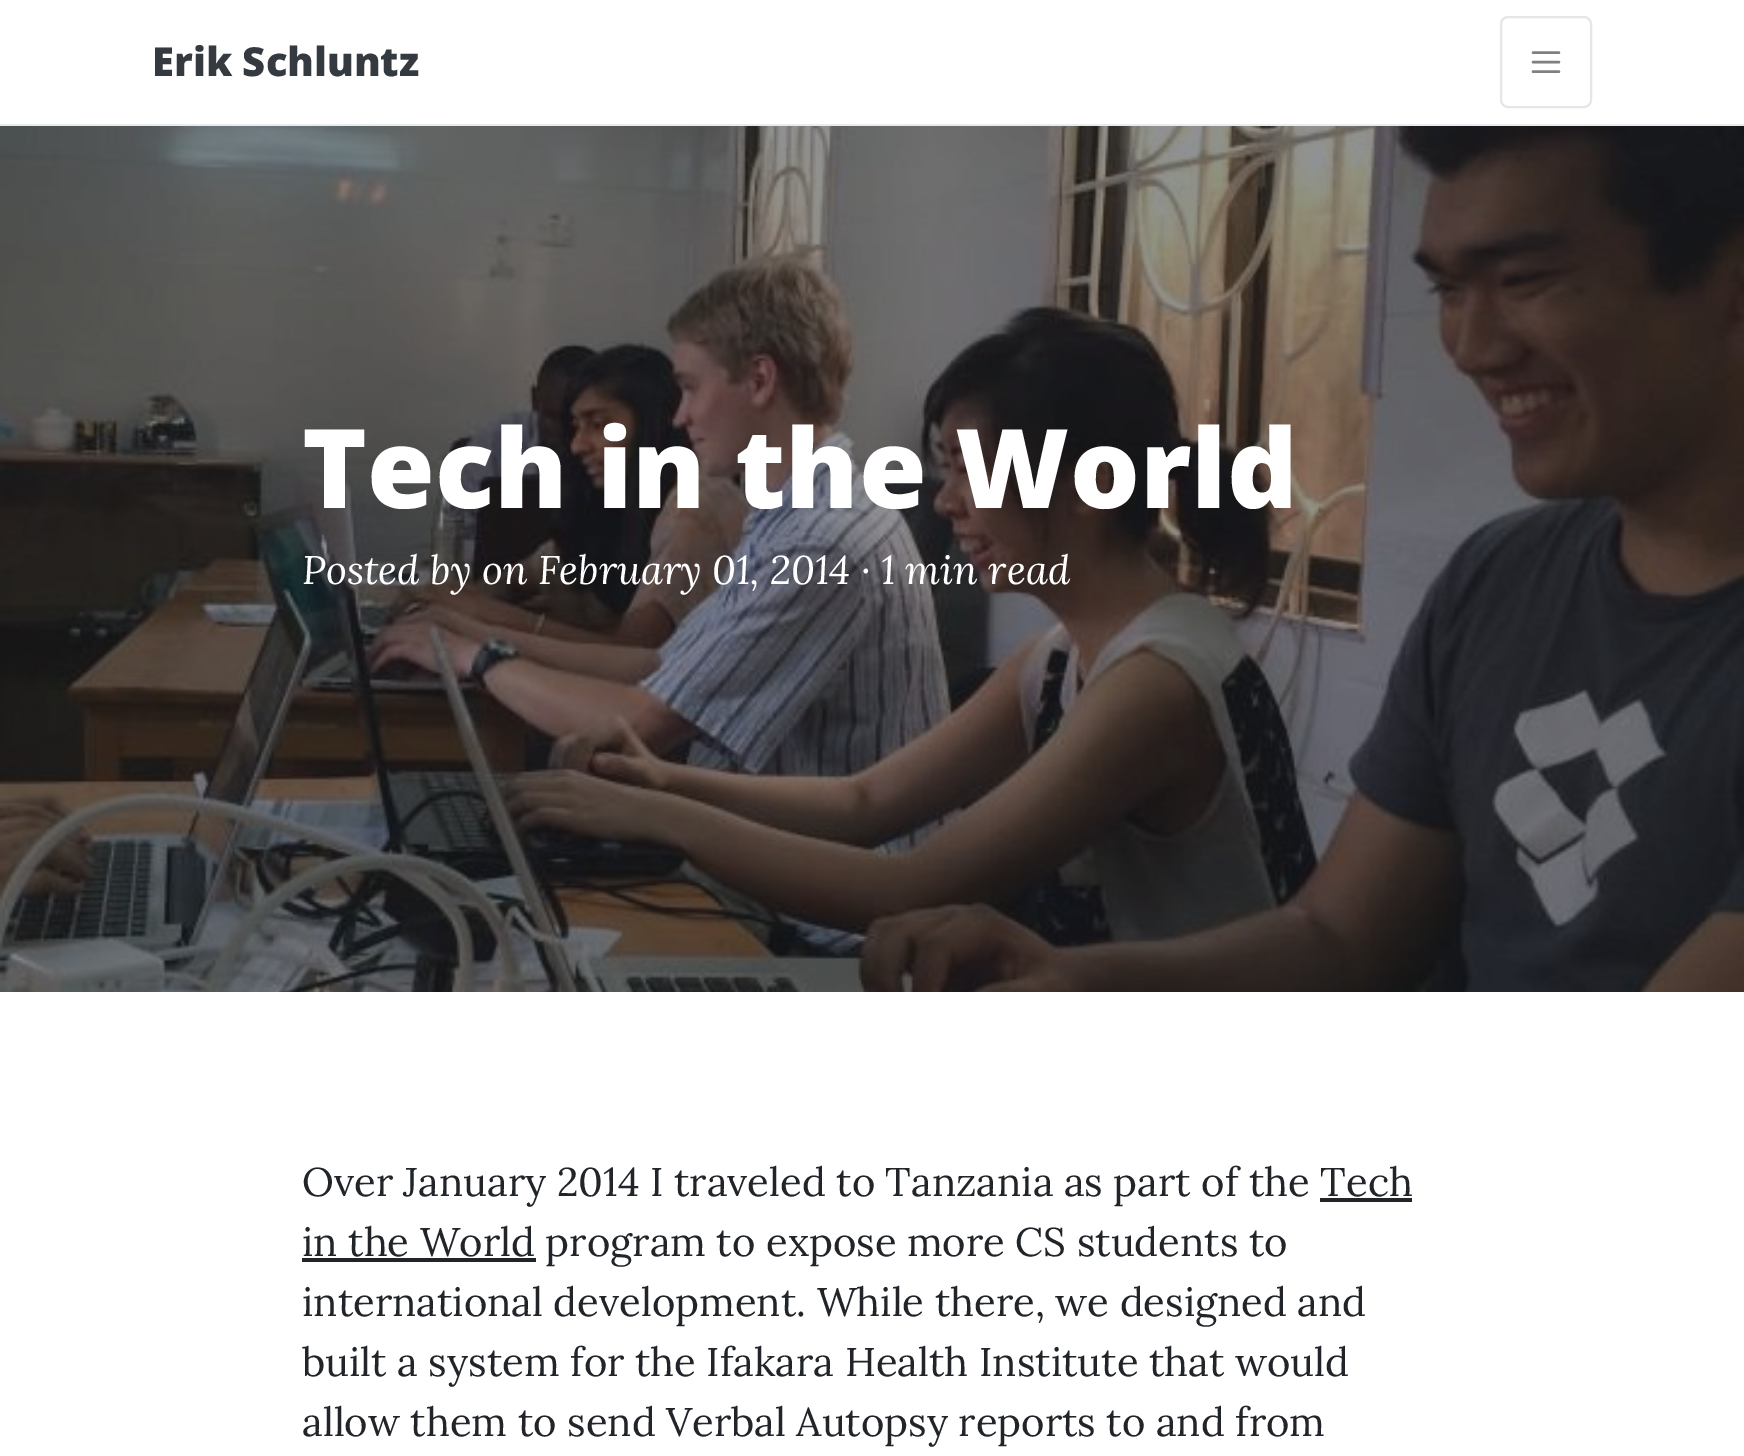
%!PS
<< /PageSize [1744 1456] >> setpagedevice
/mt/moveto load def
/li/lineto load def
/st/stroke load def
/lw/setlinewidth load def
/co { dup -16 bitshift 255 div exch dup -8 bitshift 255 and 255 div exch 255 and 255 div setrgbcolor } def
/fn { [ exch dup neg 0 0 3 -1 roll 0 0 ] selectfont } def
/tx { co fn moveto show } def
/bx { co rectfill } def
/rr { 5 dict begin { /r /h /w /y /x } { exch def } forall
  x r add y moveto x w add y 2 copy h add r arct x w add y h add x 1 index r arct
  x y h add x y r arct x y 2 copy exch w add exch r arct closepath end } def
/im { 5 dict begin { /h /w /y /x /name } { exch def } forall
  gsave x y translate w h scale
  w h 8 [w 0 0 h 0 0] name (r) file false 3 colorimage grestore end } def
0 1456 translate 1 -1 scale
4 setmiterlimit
0 0 1744 1456 16#FFFFFF bx
0 124 1744 2 16#E9ECEF bx
16#E6E6E6 co
2 lw
1501 17 90 90 7 rr st
16#808080 co
2.4 lw
1 setlinecap
1533 52.5 mt 1559 52.5 li 1533 62 mt 1559 62 li 1533 71.5 mt 1559 71.5 li st
(media/1.raw) 0 126 1744 866 im
1320 1198 92 4 16#212529 bx
302 1258 234 4 16#212529 bx
(Erik Schluntz) 152 76 /OpenSans-ExtraBold 40 16#343A40 tx
(Tech in the World) 302 508 /OpenSans-ExtraBold 110 16#FFFFFF tx
(Posted by on February 01, 2014 · 1 min read) 302 584 /Lora-Italic 40 16#FFFFFF tx
(Over January 2014 I traveled to Tanzania as part of the Tech) 302 1196 /Lora-Regular 40 16#212529 tx
(in the World program to expose more CS students to) 302 1256 /Lora-Regular 40 16#212529 tx
(international development. While there, we designed and) 302 1316 /Lora-Regular 40 16#212529 tx
(built a system for the Ifakara Health Institute that would) 302 1376 /Lora-Regular 40 16#212529 tx
(allow them to send Verbal Autopsy reports to and from) 302 1436 /Lora-Regular 40 16#212529 tx
showpage
